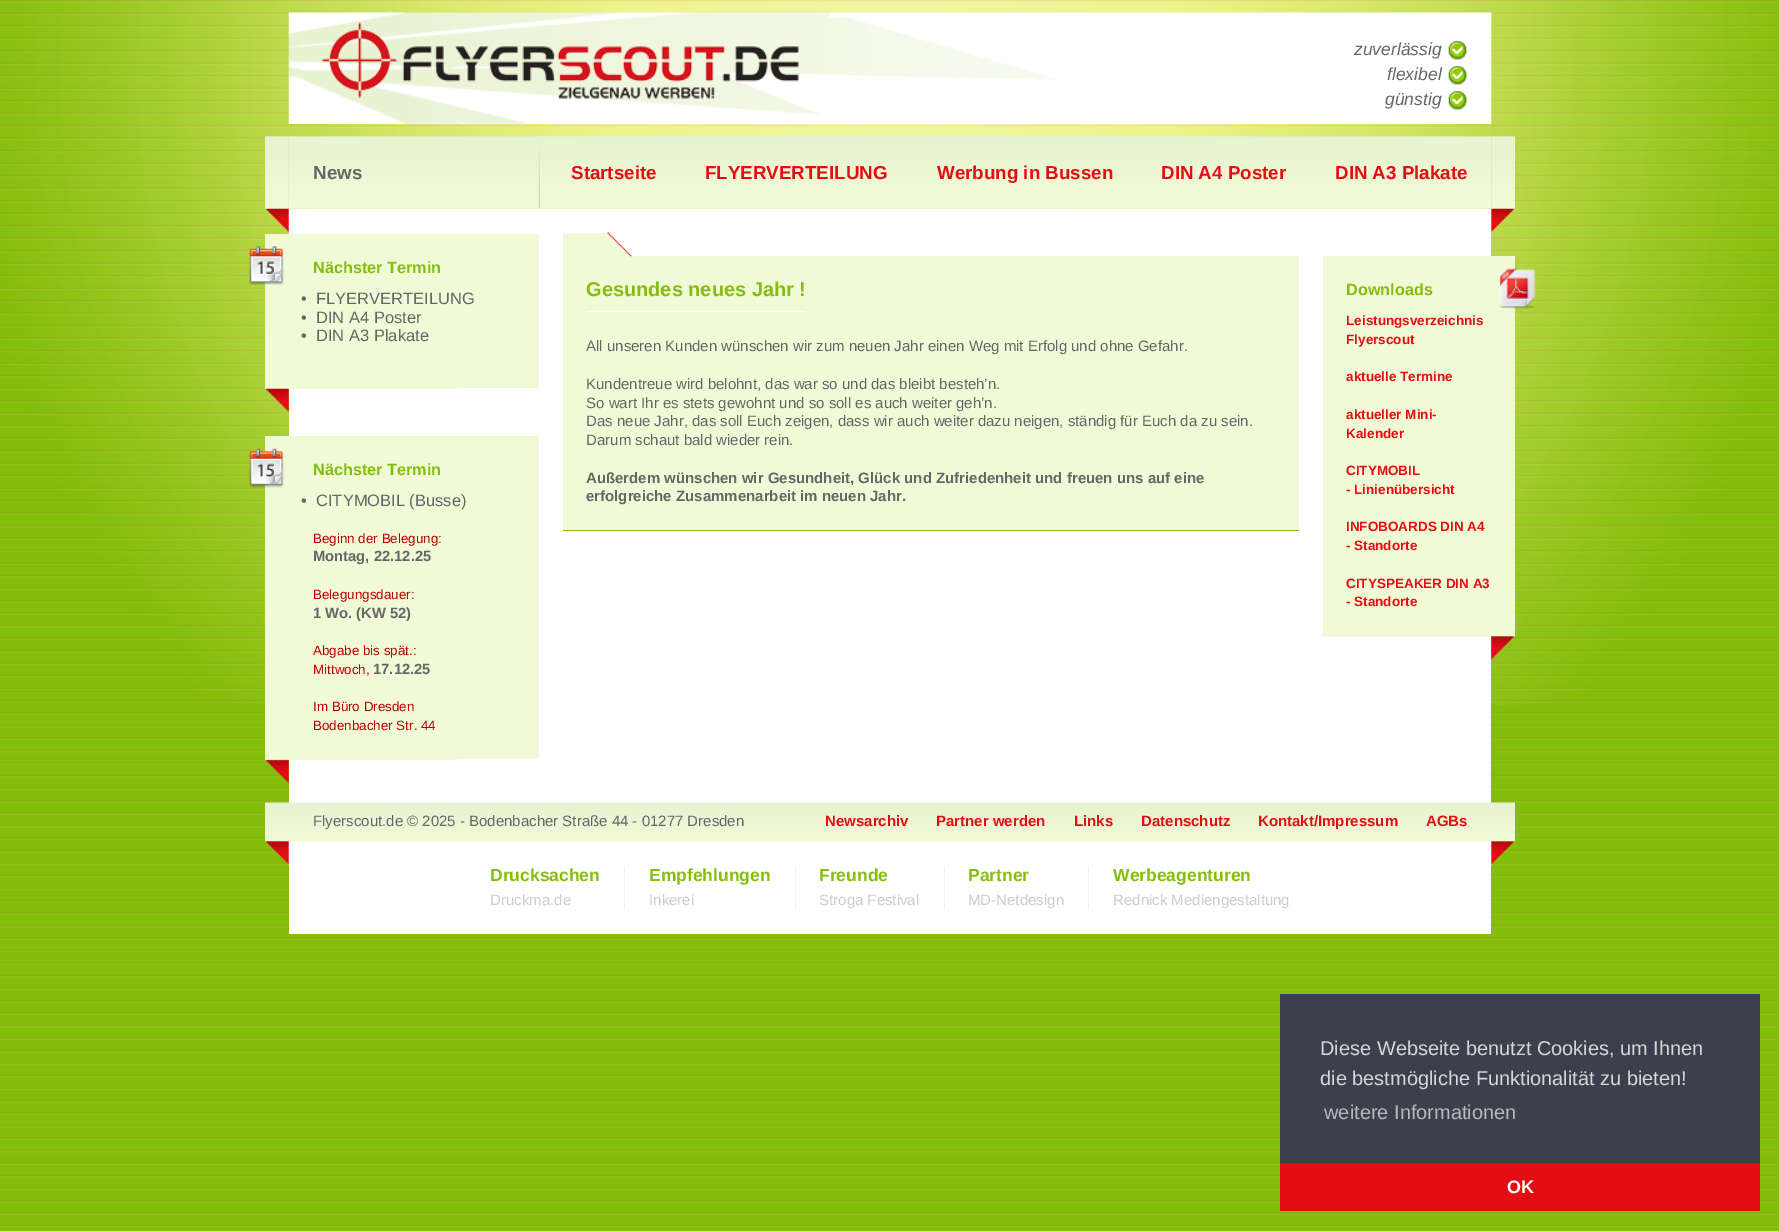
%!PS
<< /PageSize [1779 1231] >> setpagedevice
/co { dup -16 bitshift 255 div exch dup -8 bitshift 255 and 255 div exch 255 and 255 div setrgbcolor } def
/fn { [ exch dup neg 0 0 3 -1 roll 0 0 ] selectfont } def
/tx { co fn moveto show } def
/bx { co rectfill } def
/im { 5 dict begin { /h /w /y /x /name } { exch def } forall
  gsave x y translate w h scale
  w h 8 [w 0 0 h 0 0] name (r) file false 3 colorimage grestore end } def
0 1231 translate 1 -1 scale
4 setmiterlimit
0 0 1779 1231 16#FFFFFF bx
(media/1.raw) 0 705 1779 526 im
(media/2.raw) 0 0 1779 705 im
(media/3.raw) 288 12 1204 112 im
(media/4.raw) 321 22 478 77 im
(media/5.raw) 1448 41 19 19 im
(media/5.raw) 1448 66 19 19 im
(media/5.raw) 1448 91 19 19 im
(media/6.raw) 265 136 1250 97 im
(media/7.raw) 288 136 1204 73 im
(media/8.raw) 538 136 2 73 im
289 232 1202 571 16#FFFFFF bx
(media/9.raw) 265 388 193 24 im
265 234 274 154 16#F1FAD7 bx
(media/10.raw) 249 246 35 39 im
563 233 736 297 16#F1FAD7 bx
(media/11.raw) 607 232 692 25 im
563 530 736 1 16#84BD0B bx
586 311 220 1 16#FFFFFF bx
(media/12.raw) 1322 635 193 24 im
1323 256 192 379 16#F1FAD7 bx
(media/13.raw) 1499 268 37 41 im
(media/14.raw) 265 759 193 24 im
265 436 274 323 16#F1FAD7 bx
(media/15.raw) 249 448 35 40 im
(media/16.raw) 265 802 1250 65 im
289 866 1202 68 16#FFFFFF bx
624 866 1 44 16#F2F2F2 bx
795 866 1 44 16#F2F2F2 bx
944 866 1 44 16#F2F2F2 bx
1088 866 1 44 16#F2F2F2 bx
1280 994 480 169 16#3C404D bx
1280 1163 480 48 16#E30D13 bx
(zuverlässig) 1354 55 /LiberationSans-Italic 17.5 16#666666 tx
(flexibel) 1387 80 /LiberationSans-Italic 17.5 16#666666 tx
(günstig) 1385 105 /LiberationSans-Italic 17.5 16#666666 tx
(News) 313 179 /LiberationSans-Bold 18.75 16#666666 tx
(Startseite) 571 179 /LiberationSans-Bold 18.75 16#E30D13 tx
(FLYERVERTEILUNG) 705 179 /LiberationSans-Bold 18.75 16#E30D13 tx
(Werbung in Bussen) 937 179 /LiberationSans-Bold 18.75 16#E30D13 tx
(DIN A4 Poster) 1161 179 /LiberationSans-Bold 18.75 16#E30D13 tx
(DIN A3 Plakate) 1335 179 /LiberationSans-Bold 18.75 16#E30D13 tx
(Nächster Termin) 313 273 /LiberationSans-Bold 16.25 16#84BD0B tx
(•  FLYERVERTEILUNG) 301 304 /LiberationSans-Regular 16.5 16#666666 tx
(•  DIN A4 Poster) 301 323 /LiberationSans-Regular 16.5 16#666666 tx
(•  DIN A3 Plakate) 301 341 /LiberationSans-Regular 16.5 16#666666 tx
(Gesundes neues Jahr !) 586 296 /LiberationSans-Bold 20 16#84BD0B tx
(All unseren Kunden wünschen wir zum neuen Jahr einen Weg mit Erfolg und ohne Gefahr.) 586 351 /LiberationSans-Regular 15 16#666666 tx
(Kundentreue wird belohnt, das war so und das bleibt besteh’n.) 586 389 /LiberationSans-Regular 15 16#666666 tx
(So wart Ihr es stets gewohnt und so soll es auch weiter geh’n.) 586 408 /LiberationSans-Regular 15 16#666666 tx
(Das neue Jahr, das soll Euch zeigen, dass wir auch weiter dazu neigen, ständig für Euch da zu sein.) 586 426 /LiberationSans-Regular 15 16#666666 tx
(Darum schaut bald wieder rein.) 586 445 /LiberationSans-Regular 15 16#666666 tx
(Außerdem wünschen wir Gesundheit, Glück und Zufriedenheit und freuen uns auf eine) 586 483 /LiberationSans-Bold 15 16#666666 tx
(erfolgreiche Zusammenarbeit im neuen Jahr.) 586 501 /LiberationSans-Bold 15 16#666666 tx
(Downloads) 1346 295 /LiberationSans-Bold 16.25 16#84BD0B tx
(Leistungsverzeichnis) 1346 325 /LiberationSans-Bold 13.5 16#E30D13 tx
(Flyerscout) 1346 344 /LiberationSans-Bold 13.5 16#E30D13 tx
(aktuelle Termine) 1346 381 /LiberationSans-Bold 13.5 16#E30D13 tx
(aktueller Mini-) 1346 419 /LiberationSans-Bold 13.5 16#E30D13 tx
(Kalender) 1346 438 /LiberationSans-Bold 13.5 16#E30D13 tx
(CITYMOBIL) 1346 475 /LiberationSans-Bold 13.5 16#E30D13 tx
(- Linienübersicht) 1346 494 /LiberationSans-Bold 13.5 16#E30D13 tx
(INFOBOARDS DIN A4) 1346 531 /LiberationSans-Bold 13.5 16#E30D13 tx
(- Standorte) 1346 550 /LiberationSans-Bold 13.5 16#E30D13 tx
(CITYSPEAKER DIN A3) 1346 588 /LiberationSans-Bold 13.5 16#E30D13 tx
(- Standorte) 1346 606 /LiberationSans-Bold 13.5 16#E30D13 tx
(Nächster Termin) 313 475 /LiberationSans-Bold 16.25 16#84BD0B tx
(•  CITYMOBIL \(Busse\)) 301 506 /LiberationSans-Regular 16.5 16#666666 tx
(Beginn der Belegung:) 313 543 /LiberationSans-Regular 13.4 16#BB0000 tx
(Montag, 22.12.25) 313 561 /LiberationSans-Bold 14.75 16#666666 tx
(Belegungsdauer:) 313 599 /LiberationSans-Regular 13.4 16#BB0000 tx
(1 Wo. \(KW 52\)) 313 618 /LiberationSans-Bold 14.75 16#666666 tx
(Abgabe bis spät.:) 313 655 /LiberationSans-Regular 13.4 16#BB0000 tx
(Mittwoch,) 313 674 /LiberationSans-Regular 13.4 16#BB0000 tx
(17.12.25) 373 674 /LiberationSans-Bold 14.75 16#666666 tx
(Im Büro Dresden) 313 711 /LiberationSans-Regular 13.4 16#BB0000 tx
(Bodenbacher Str. 44) 313 730 /LiberationSans-Regular 13.4 16#BB0000 tx
(Flyerscout.de © 2025 - Bodenbacher Straße 44 - 01277 Dresden) 313 826 /LiberationSans-Regular 15 16#666666 tx
(Newsarchiv) 825 826 /LiberationSans-Bold 15 16#E30D13 tx
(Partner werden) 936 826 /LiberationSans-Bold 15 16#E30D13 tx
(Links) 1074 826 /LiberationSans-Bold 15 16#E30D13 tx
(Datenschutz) 1141 826 /LiberationSans-Bold 15 16#E30D13 tx
(Kontakt/Impressum) 1258 826 /LiberationSans-Bold 15 16#E30D13 tx
(AGBs) 1426 826 /LiberationSans-Bold 15 16#E30D13 tx
(Drucksachen) 490 881 /LiberationSans-Bold 17.5 16#84BD0B tx
(Druckma.de) 490 905 /LiberationSans-Regular 15 16#CCCCCC tx
(Empfehlungen) 649 881 /LiberationSans-Bold 17.5 16#84BD0B tx
(Inkerei) 649 905 /LiberationSans-Regular 15 16#CCCCCC tx
(Freunde) 819 881 /LiberationSans-Bold 17.5 16#84BD0B tx
(Stroga Festival) 819 905 /LiberationSans-Regular 15 16#CCCCCC tx
(Partner) 968 881 /LiberationSans-Bold 17.5 16#84BD0B tx
(MD-Netdesign) 968 905 /LiberationSans-Regular 15 16#CCCCCC tx
(Werbeagenturen) 1113 881 /LiberationSans-Bold 17.5 16#84BD0B tx
(Rednick Mediengestaltung) 1113 905 /LiberationSans-Regular 15 16#CCCCCC tx
(Diese Webseite benutzt Cookies, um Ihnen) 1320 1055 /LiberationSans-Regular 20 16#D6D6D6 tx
(die bestmögliche Funktionalität zu bieten!) 1320 1085 /LiberationSans-Regular 20 16#D6D6D6 tx
(weitere Informationen) 1324 1119 /LiberationSans-Regular 20 16#B7B8BB tx
(OK) 1507 1193 /LiberationSans-Bold 18 16#FFFFFF tx
showpage
